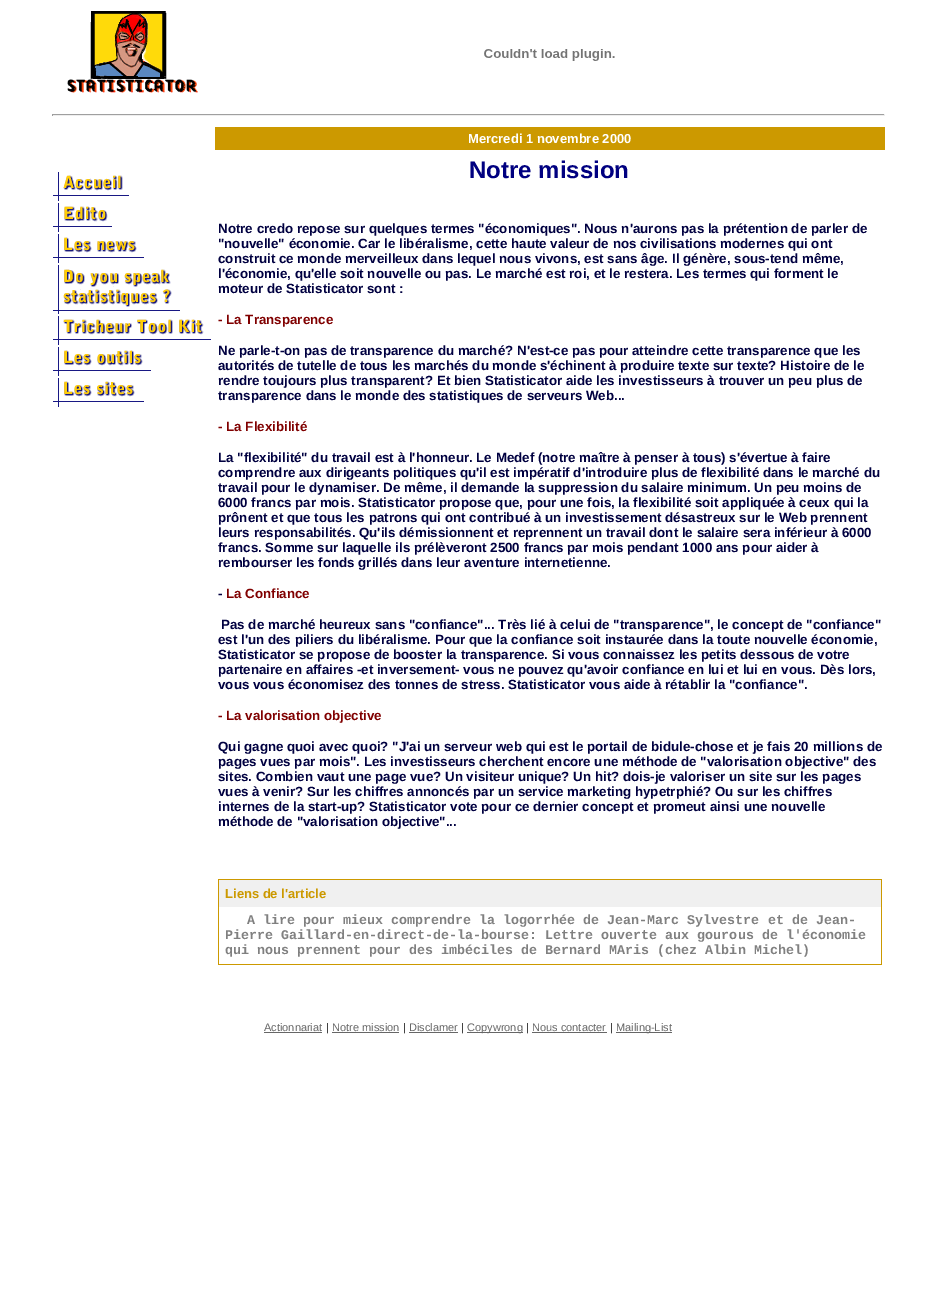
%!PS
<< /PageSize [936 1311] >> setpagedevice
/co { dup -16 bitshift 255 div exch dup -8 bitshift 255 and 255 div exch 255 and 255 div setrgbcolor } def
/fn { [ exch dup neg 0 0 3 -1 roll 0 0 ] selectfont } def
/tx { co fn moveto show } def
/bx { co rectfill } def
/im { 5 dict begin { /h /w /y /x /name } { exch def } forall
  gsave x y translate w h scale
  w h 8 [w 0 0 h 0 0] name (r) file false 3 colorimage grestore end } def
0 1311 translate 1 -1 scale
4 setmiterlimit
0 0 936 1311 16#FFFFFF bx
(media/1.raw) 67 11 131 82 im
(media/2.raw) 484 49 131 12 im
52 114 833 1 16#9F9F9F bx
884 114 1 2 16#EEEEEE bx
52 115 833 1 16#EEEEEE bx
52 114 1 2 16#9F9F9F bx
215 127 670 23 16#CC9900 bx
(media/3.raw) 53 172 76 29 im
(media/4.raw) 53 203 59 29 im
(media/5.raw) 53 234 91 29 im
(media/6.raw) 53 265 127 49 im
(media/7.raw) 53 316 158 29 im
(media/8.raw) 53 347 98 29 im
(media/9.raw) 53 378 91 29 im
218 879 664 86 16#CC9900 bx
219 880 662 27 16#F0F0F0 bx
219 907 662 57 16#FFFFFF bx
264 1032 58 1 16#666666 bx
332 1032 67 1 16#666666 bx
409 1032 49 1 16#666666 bx
467 1032 56 1 16#666666 bx
532 1032 75 1 16#666666 bx
616 1032 56 1 16#666666 bx
(Mercredi 1 novembre 2000) 468 143 /LiberationSans-Bold 13 16#FFFFFF tx
(Notre mission) 469 178 /LiberationSans-Bold 24 16#000080 tx
(Notre credo repose sur quelques termes "économiques". Nous n'aurons pas la prétention de parler de) 218 233 /LiberationSans-Bold 13.35 16#000040 tx
("nouvelle" économie. Car le libéralisme, cette haute valeur de nos civilisations modernes qui ont) 218 248 /LiberationSans-Bold 13.35 16#000040 tx
(construit ce monde merveilleux dans lequel nous vivons, est sans âge. Il génère, sous-tend même,) 218 263 /LiberationSans-Bold 13.35 16#000040 tx
(l'économie, qu'elle soit nouvelle ou pas. Le marché est roi, et le restera. Les termes qui forment le) 218 278 /LiberationSans-Bold 13.35 16#000040 tx
(moteur de Statisticator sont :) 218 293 /LiberationSans-Bold 13.35 16#000040 tx
(- La Transparence) 218 324 /LiberationSans-Bold 13.35 16#800000 tx
(Ne parle-t-on pas de transparence du marché? N'est-ce pas pour atteindre cette transparence que les) 218 355 /LiberationSans-Bold 13.35 16#000040 tx
(autorités de tutelle de tous les marchés du monde s'échinent à produire texte sur texte? Histoire de le) 218 370 /LiberationSans-Bold 13.35 16#000040 tx
(rendre toujours plus transparent? Et bien Statisticator aide les investisseurs à trouver un peu plus de) 218 385 /LiberationSans-Bold 13.35 16#000040 tx
(transparence dans le monde des statistiques de serveurs Web...) 218 400 /LiberationSans-Bold 13.35 16#000040 tx
(- La Flexibilité) 218 431 /LiberationSans-Bold 13.35 16#800000 tx
(La "flexibilité" du travail est à l'honneur. Le Medef \(notre maître à penser à tous\) s'évertue à faire) 218 462 /LiberationSans-Bold 13.35 16#000040 tx
(comprendre aux dirigeants politiques qu'il est impératif d'introduire plus de flexibilité dans le marché du) 218 477 /LiberationSans-Bold 13.35 16#000040 tx
(travail pour le dynamiser. De même, il demande la suppression du salaire minimum. Un peu moins de) 218 492 /LiberationSans-Bold 13.35 16#000040 tx
(6000 francs par mois. Statisticator propose que, pour une fois, la flexibilité soit appliquée à ceux qui la) 218 507 /LiberationSans-Bold 13.35 16#000040 tx
(prônent et que tous les patrons qui ont contribué à un investissement désastreux sur le Web prennent) 218 522 /LiberationSans-Bold 13.35 16#000040 tx
(leurs responsabilités. Qu'ils démissionnent et reprennent un travail dont le salaire sera inférieur à 6000) 218 537 /LiberationSans-Bold 13.35 16#000040 tx
(francs. Somme sur laquelle ils prélèveront 2500 francs par mois pendant 1000 ans pour aider à) 218 552 /LiberationSans-Bold 13.35 16#000040 tx
(rembourser les fonds grillés dans leur aventure internetienne.) 218 567 /LiberationSans-Bold 13.35 16#000040 tx
(-) 218 598 /LiberationSans-Bold 13.35 16#000040 tx
(La Confiance) 226 598 /LiberationSans-Bold 13.35 16#800000 tx
(Pas de marché heureux sans "confiance"... Très lié à celui de "transparence", le concept de "confiance") 221 629 /LiberationSans-Bold 13.35 16#000040 tx
(est l'un des piliers du libéralisme. Pour que la confiance soit instaurée dans la toute nouvelle économie,) 218 644 /LiberationSans-Bold 13.35 16#000040 tx
(Statisticator se propose de booster la transparence. Si vous connaissez les petits dessous de votre) 218 659 /LiberationSans-Bold 13.35 16#000040 tx
(partenaire en affaires -et inversement- vous ne pouvez qu'avoir confiance en lui et lui en vous. Dès lors,) 218 674 /LiberationSans-Bold 13.35 16#000040 tx
(vous vous économisez des tonnes de stress. Statisticator vous aide à rétablir la "confiance".) 218 689 /LiberationSans-Bold 13.35 16#000040 tx
(- La valorisation objective) 218 720 /LiberationSans-Bold 13.35 16#800000 tx
(Qui gagne quoi avec quoi? "J'ai un serveur web qui est le portail de bidule-chose et je fais 20 millions de) 218 751 /LiberationSans-Bold 13.35 16#000040 tx
(pages vues par mois". Les investisseurs cherchent encore une méthode de "valorisation objective" des) 218 766 /LiberationSans-Bold 13.35 16#000040 tx
(sites. Combien vaut une page vue? Un visiteur unique? Un hit? dois-je valoriser un site sur les pages) 218 781 /LiberationSans-Bold 13.35 16#000040 tx
(vues à venir? Sur les chiffres annoncés par un service marketing hypetrphié? Ou sur les chiffres) 218 796 /LiberationSans-Bold 13.35 16#000040 tx
(internes de la start-up? Statisticator vote pour ce dernier concept et promeut ainsi une nouvelle) 218 811 /LiberationSans-Bold 13.35 16#000040 tx
(méthode de "valorisation objective"...) 218 826 /LiberationSans-Bold 13.35 16#000040 tx
(Liens de l'article) 225 898 /LiberationSans-Bold 13 16#CC9900 tx
(A lire pour mieux comprendre la logorrhée de Jean-Marc Sylvestre et de Jean-) 247 924 /LiberationMono-Bold 13.35 16#808080 tx
(Pierre Gaillard-en-direct-de-la-bourse: Lettre ouverte aux gourous de l'économie) 225 939 /LiberationMono-Bold 13.35 16#808080 tx
(qui nous prennent pour des imbéciles de Bernard MAris \(chez Albin Michel\)) 225 954 /LiberationMono-Bold 13.35 16#808080 tx
(Actionnariat) 264 1031 /LiberationSans-Regular 11 16#666666 tx
(|) 326 1031 /LiberationSans-Regular 11 16#000000 tx
(Notre mission) 332 1031 /LiberationSans-Regular 11 16#666666 tx
(|) 403 1031 /LiberationSans-Regular 11 16#000000 tx
(Disclamer) 409 1031 /LiberationSans-Regular 11 16#666666 tx
(|) 461 1031 /LiberationSans-Regular 11 16#000000 tx
(Copywrong) 467 1031 /LiberationSans-Regular 11 16#666666 tx
(|) 526 1031 /LiberationSans-Regular 11 16#000000 tx
(Nous contacter) 532 1031 /LiberationSans-Regular 11 16#666666 tx
(|) 610 1031 /LiberationSans-Regular 11 16#000000 tx
(Mailing-List) 616 1031 /LiberationSans-Regular 11 16#666666 tx
showpage
